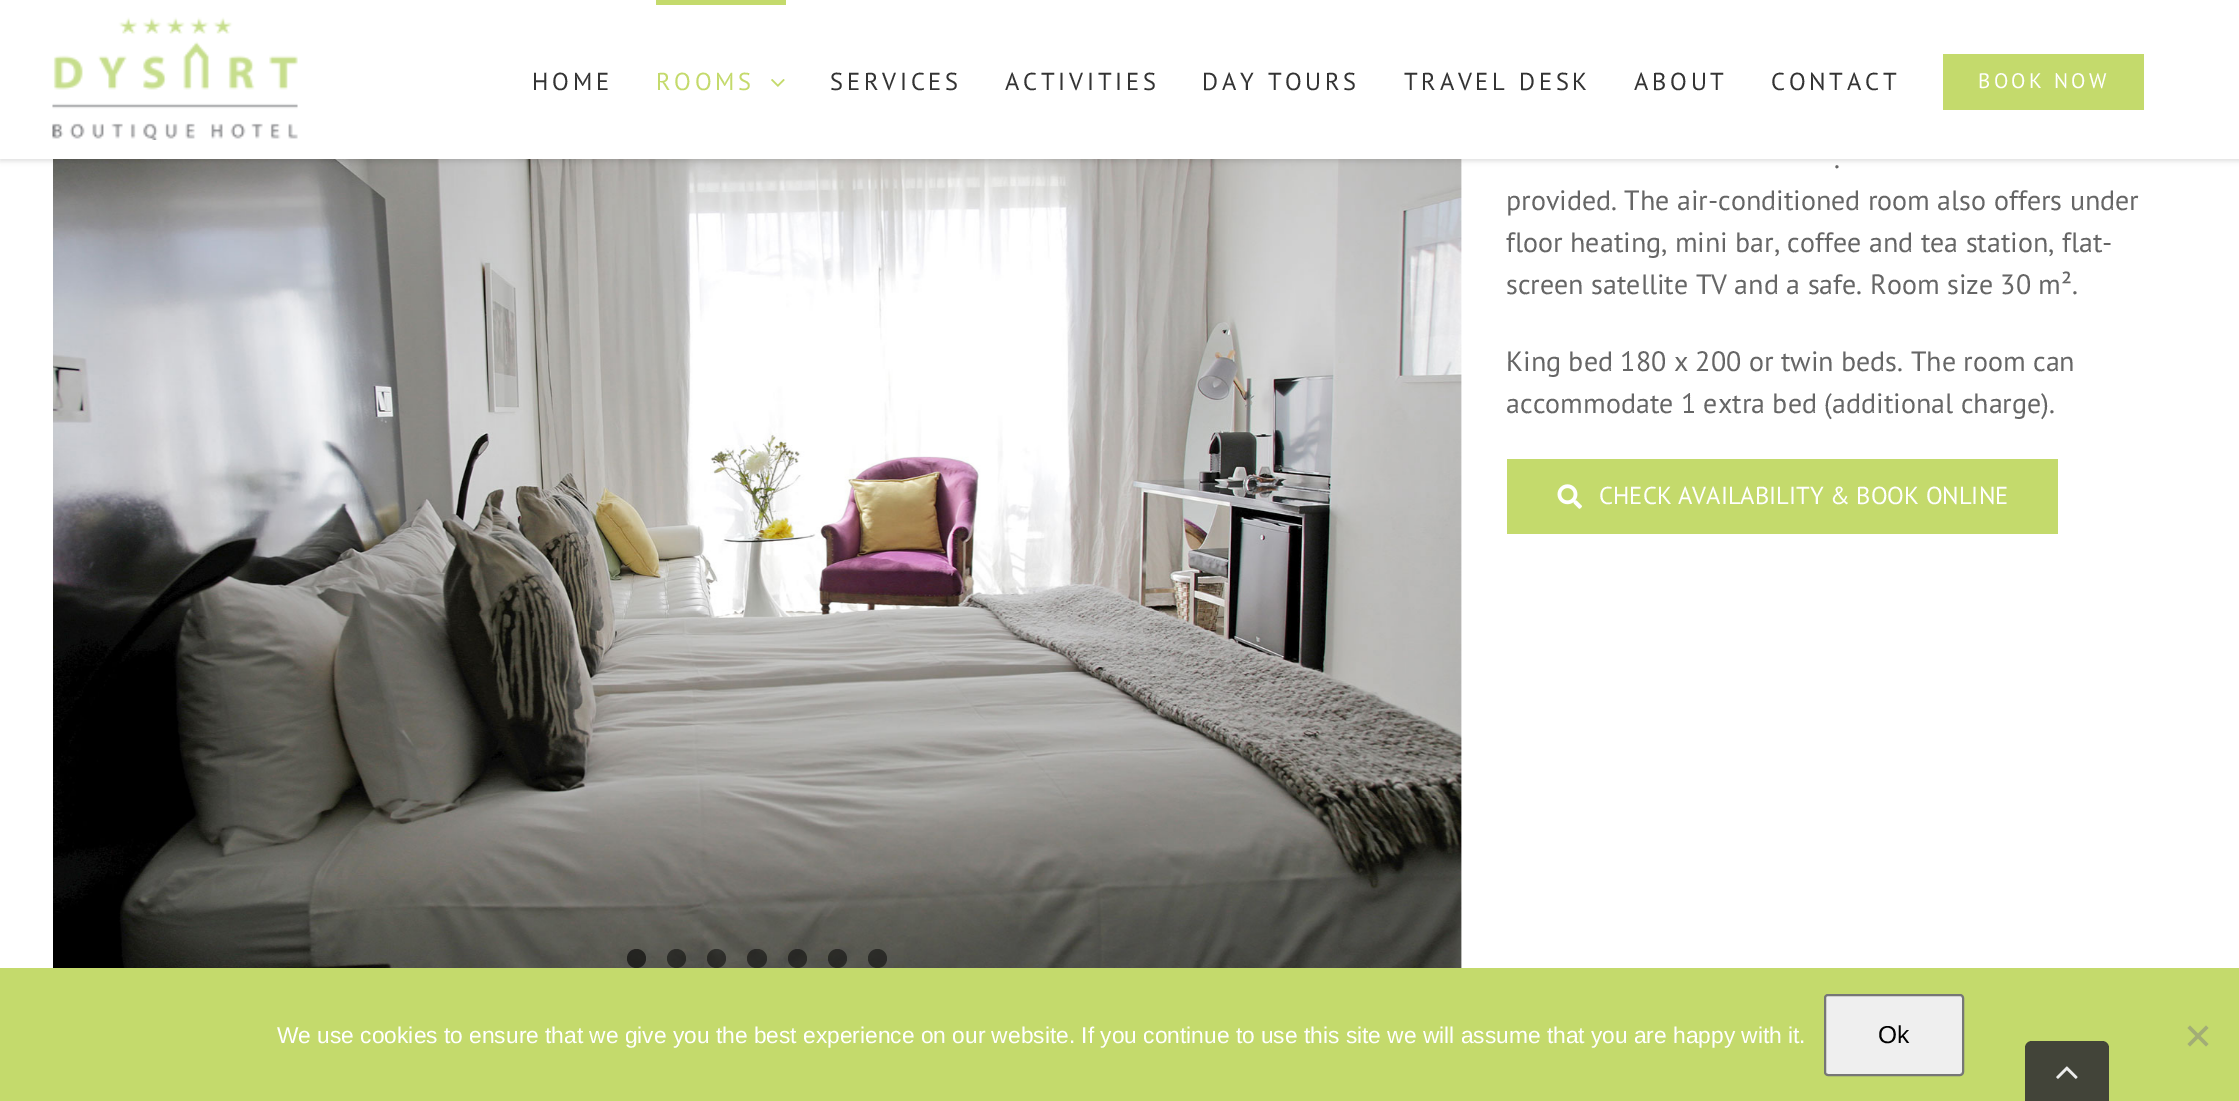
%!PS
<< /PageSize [2239 1101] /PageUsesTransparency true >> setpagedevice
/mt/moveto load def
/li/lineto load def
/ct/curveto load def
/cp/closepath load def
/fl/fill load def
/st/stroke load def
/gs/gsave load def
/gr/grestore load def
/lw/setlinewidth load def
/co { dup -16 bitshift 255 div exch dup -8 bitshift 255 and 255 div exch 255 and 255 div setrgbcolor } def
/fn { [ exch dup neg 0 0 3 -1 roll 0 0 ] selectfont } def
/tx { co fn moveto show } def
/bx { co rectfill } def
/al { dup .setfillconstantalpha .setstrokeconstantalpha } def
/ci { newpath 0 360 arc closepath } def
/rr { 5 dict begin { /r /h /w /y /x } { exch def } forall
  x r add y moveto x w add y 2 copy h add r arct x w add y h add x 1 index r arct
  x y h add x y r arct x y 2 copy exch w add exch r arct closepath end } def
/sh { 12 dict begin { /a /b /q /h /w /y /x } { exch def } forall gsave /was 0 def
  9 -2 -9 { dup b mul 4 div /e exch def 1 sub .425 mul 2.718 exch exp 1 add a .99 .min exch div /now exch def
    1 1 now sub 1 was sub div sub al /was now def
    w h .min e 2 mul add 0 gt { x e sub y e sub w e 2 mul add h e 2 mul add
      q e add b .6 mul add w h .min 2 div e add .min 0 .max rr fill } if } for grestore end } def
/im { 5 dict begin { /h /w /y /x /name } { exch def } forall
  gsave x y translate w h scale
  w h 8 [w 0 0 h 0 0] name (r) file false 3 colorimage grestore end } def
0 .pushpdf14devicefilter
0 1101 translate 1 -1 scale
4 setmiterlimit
0 0 2239 1101 16#FFFFFF bx
(media/3.raw) 53 159 1409 809 im
16#000000 co
0 2 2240 159 0 2.5 .12 sh
0 0 2239 159 16#FFFFFF bx
(media/1.raw) 52 17 246 123 im
656 0 130 5 16#C4DA6C bx
(media/2.raw) 771 79 14 8 im
1943 54 201 56 16#C4DA6C bx
0.6 al
16#000000 co
636.5 958.5 9.5 ci fl
0.5 al
676.5 958.5 9.5 ci fl
716.5 958.5 9.5 ci fl
747 949 20 19 9.5 rr fl
797.5 958.5 9.5 ci fl
837.5 958.5 9.5 ci fl
877.5 958.5 9.5 ci fl
1 al
1507 459 551 75 16#C4DA6C bx
(media/4.raw) 1557 484 25 25 im
0 968 2239 133 16#C4DA6C bx
16#EFEFEF co
1825 995 138 80 3 rr gs fl gr
16#767676 co
2 lw
st
16#A2AD76 co
2206 1025.5 mt 2208.5 1028 li 2190 1046.5 li 2187.5 1044 li cp fl
2187.5 1028 mt 2190 1025.5 li 2208.5 1044 li 2206 1046.5 li cp fl
16#424439 co
2032 1041 mt 2102 1041 li 2106 1041 2109 1044 2109 1048 ct 2109 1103 li 2025 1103 li 2025 1048 li 2025 1044 2028 1041 2032 1041 ct cp fl
(media/5.raw) 2056 1066 22 13 im
/PTSans-Regular 24.5 fn
16#333333 co
532 90 mt 3.75 0 (HOME) ashow
16#C4DA6C co
656 90 mt 3.75 0 (ROOMS) ashow
16#333333 co
830 90 mt 3.75 0 (SERVICES) ashow
1005 90 mt 3.75 0 (ACTIVITIES) ashow
1202 90 mt 3.75 0 (DAY TOURS) ashow
1404 90 mt 3.75 0 (TRAVEL DESK) ashow
1634 90 mt 3.75 0 (ABOUT) ashow
1771 90 mt 3.75 0 (CONTACT) ashow
/PTSans-Regular 21 fn
16#FFFFFF co
1978 88 mt 3.25 0 (BOOK NOW) ashow
(.) 1834 168 /PTSans-Regular 28 16#666666 tx
(provided. The air-conditioned room also offers under) 1506 210 /PTSans-Regular 28 16#666666 tx
(floor heating, mini bar, coffee and tea station, flat-) 1506 252 /PTSans-Regular 28 16#666666 tx
(screen satellite TV and a safe. Room size 30 m².) 1506 294 /PTSans-Regular 28 16#666666 tx
(King bed 180 x 200 or twin beds. The room can) 1506 371 /PTSans-Regular 28 16#666666 tx
(accommodate 1 extra bed \(additional charge\).) 1506 413 /PTSans-Regular 28 16#666666 tx
(CHECK AVAILABILITY & BOOK ONLINE) 1599 504 /PTSans-Regular 24.5 16#FFFFFF tx
(We use cookies to ensure that we give you the best experience on our website. If you continue to use this site we will assume that you are happy with it.) 277 1043 /LiberationSans-Regular 22.75 16#FFFFFF tx
(Ok) 1878 1043 /LiberationSans-Regular 24.5 16#000000 tx
.poppdf14devicefilter showpage
